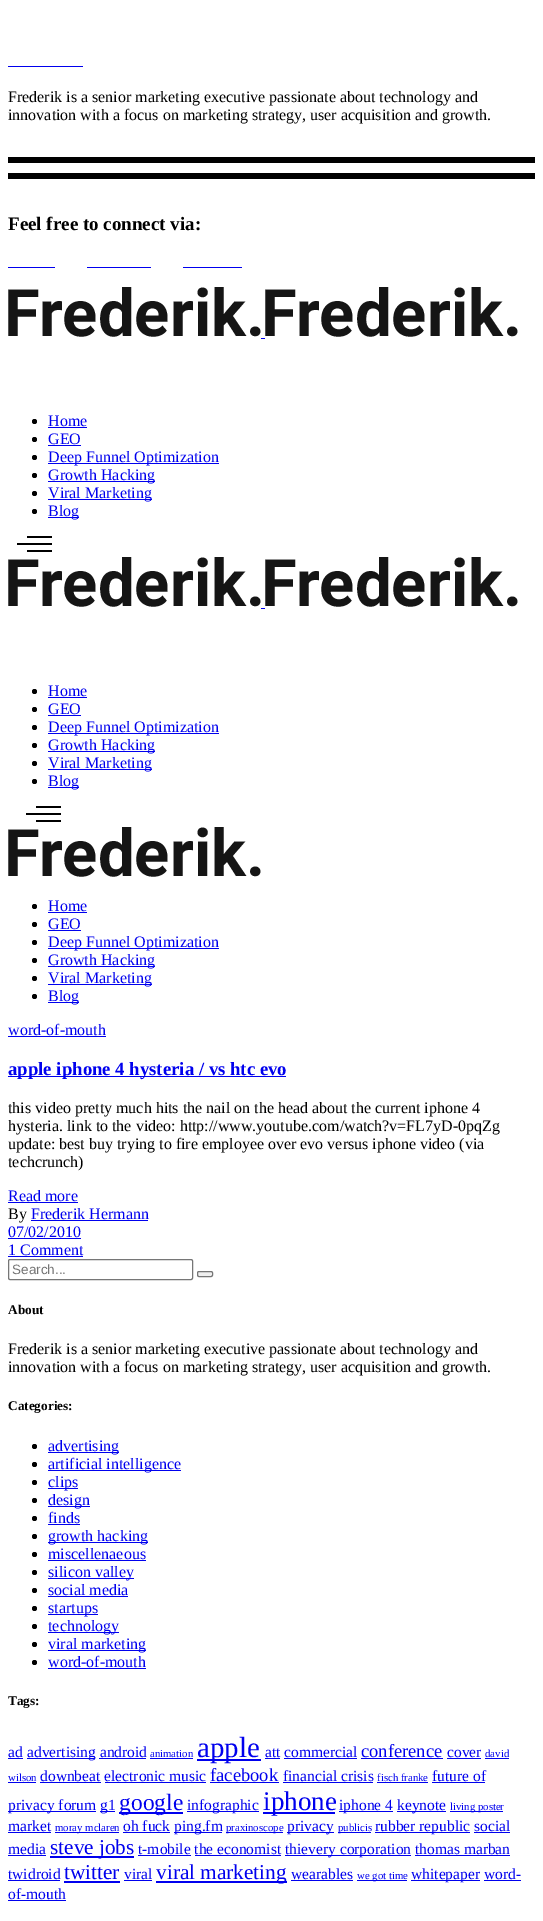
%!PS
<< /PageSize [543 1921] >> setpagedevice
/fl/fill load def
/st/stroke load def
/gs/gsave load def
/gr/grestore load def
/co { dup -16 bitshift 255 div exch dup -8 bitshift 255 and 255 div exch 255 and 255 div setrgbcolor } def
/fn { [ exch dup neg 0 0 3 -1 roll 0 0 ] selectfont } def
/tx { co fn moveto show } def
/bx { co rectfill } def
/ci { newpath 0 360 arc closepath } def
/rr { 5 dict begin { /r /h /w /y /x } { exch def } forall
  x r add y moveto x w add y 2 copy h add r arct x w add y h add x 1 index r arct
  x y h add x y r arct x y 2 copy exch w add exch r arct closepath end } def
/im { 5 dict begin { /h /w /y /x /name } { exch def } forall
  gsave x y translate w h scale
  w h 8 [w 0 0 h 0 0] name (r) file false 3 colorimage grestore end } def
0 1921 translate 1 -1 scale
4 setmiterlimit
0 0 543 1921 16#FFFFFF bx
8 66 75 1 16#0000EE bx
8 157 527 6 16#000000 bx
8 173 527 6 16#000000 bx
8 267 47 1 16#0000EE bx
87 267 64 1 16#0000EE bx
183 267 59 1 16#0000EE bx
(media/1.raw) 8 287 253 50 im
(media/1.raw) 265 287 253 50 im
261 338 4 1 16#0000EE bx
16#000000 co
34.5 421.5 2.5 ci fl
48 427 39 1 16#0000EE bx
16#000000 co
34.5 439.5 2.5 ci fl
48 445 33 1 16#0000EE bx
16#000000 co
34.5 457.5 2.5 ci fl
48 463 171 1 16#0000EE bx
16#000000 co
34.5 475.5 2.5 ci fl
48 481 107 1 16#0000EE bx
16#000000 co
34.5 493.5 2.5 ci fl
48 499 104 1 16#0000EE bx
16#000000 co
34.5 511.5 2.5 ci fl
48 517 31 1 16#0000EE bx
27 536 25 2 16#000000 bx
17 543 35 2 16#000000 bx
27 550 25 2 16#000000 bx
(media/1.raw) 8 557 253 50 im
(media/1.raw) 265 557 253 50 im
261 608 4 1 16#0000EE bx
16#000000 co
34.5 691.5 2.5 ci fl
48 697 39 1 16#0000EE bx
16#000000 co
34.5 709.5 2.5 ci fl
48 715 33 1 16#0000EE bx
16#000000 co
34.5 727.5 2.5 ci fl
48 733 171 1 16#0000EE bx
16#000000 co
34.5 745.5 2.5 ci fl
48 751 107 1 16#0000EE bx
16#000000 co
34.5 763.5 2.5 ci fl
48 769 104 1 16#0000EE bx
16#000000 co
34.5 781.5 2.5 ci fl
48 787 31 1 16#0000EE bx
36 806 25 2 16#000000 bx
26 813 35 2 16#000000 bx
36 820 25 2 16#000000 bx
(media/1.raw) 8 827 253 50 im
34.5 906.5 2.5 ci fl
48 912 39 1 16#0000EE bx
16#000000 co
34.5 924.5 2.5 ci fl
48 930 33 1 16#0000EE bx
16#000000 co
34.5 942.5 2.5 ci fl
48 948 171 1 16#0000EE bx
16#000000 co
34.5 960.5 2.5 ci fl
48 966 107 1 16#0000EE bx
16#000000 co
34.5 978.5 2.5 ci fl
48 984 104 1 16#0000EE bx
16#000000 co
34.5 996.5 2.5 ci fl
48 1002 31 1 16#0000EE bx
8 1036 98 1 16#0000EE bx
8 1076 278 1 16#0000EE bx
8 1202 70 1 16#0000EE bx
31 1220 117 1 16#0000EE bx
8 1238 73 1 16#0000EE bx
8 1256 75 1 16#0000EE bx
16#767676 co
8.5 1259.5 184 20 1.5 rr st
16#EFEFEF co
197.5 1271.5 15 5 1.5 rr gs fl gr
16#767676 co
st
16#000000 co
34.5 1446.5 2.5 ci fl
48 1452 71 1 16#0000EE bx
16#000000 co
34.5 1464.5 2.5 ci fl
48 1470 133 1 16#0000EE bx
16#000000 co
34.5 1482.5 2.5 ci fl
48 1488 30 1 16#0000EE bx
16#000000 co
34.5 1500.5 2.5 ci fl
48 1506 42 1 16#0000EE bx
16#000000 co
34.5 1518.5 2.5 ci fl
48 1524 32 1 16#0000EE bx
16#000000 co
34.5 1536.5 2.5 ci fl
48 1542 100 1 16#0000EE bx
16#000000 co
34.5 1554.5 2.5 ci fl
48 1560 98 1 16#0000EE bx
16#000000 co
34.5 1572.5 2.5 ci fl
48 1578 86 1 16#0000EE bx
16#000000 co
34.5 1590.5 2.5 ci fl
48 1596 80 1 16#0000EE bx
16#000000 co
34.5 1608.5 2.5 ci fl
48 1614 50 1 16#0000EE bx
16#000000 co
34.5 1626.5 2.5 ci fl
48 1632 71 1 16#0000EE bx
16#000000 co
34.5 1644.5 2.5 ci fl
48 1650 98 1 16#0000EE bx
16#000000 co
34.5 1662.5 2.5 ci fl
48 1668 98 1 16#0000EE bx
8 1758 15 1 16#0000EE bx
27 1758 68 1 16#0000EE bx
150 1758 43 1 16#0000EE bx
197 1759 64 2 16#0000EE bx
265 1758 15 1 16#0000EE bx
361 1758 82 1 16#0000EE bx
447 1758 34 1 16#0000EE bx
485 1758 24 1 16#0000EE bx
99 1758 47 1 16#0000EE bx
284 1758 73 1 16#0000EE bx
8 1782 28 1 16#0000EE bx
40 1782 61 1 16#0000EE bx
210 1782 69 1 16#0000EE bx
283 1782 90 1 16#0000EE bx
377 1782 51 1 16#0000EE bx
432 1782 53 1 16#0000EE bx
105 1782 101 1 16#0000EE bx
8 1811 88 1 16#0000EE bx
100 1811 15 1 16#0000EE bx
119 1812 64 2 16#0000EE bx
187 1811 72 1 16#0000EE bx
263 1812 72 2 16#0000EE bx
339 1811 54 1 16#0000EE bx
397 1811 49 1 16#0000EE bx
450 1811 53 1 16#0000EE bx
8 1832 43 1 16#0000EE bx
55 1832 64 1 16#0000EE bx
123 1832 47 1 16#0000EE bx
174 1832 48 1 16#0000EE bx
226 1832 57 1 16#0000EE bx
287 1832 47 1 16#0000EE bx
338 1832 33 1 16#0000EE bx
375 1832 95 1 16#0000EE bx
474 1832 36 1 16#0000EE bx
8 1855 38 1 16#0000EE bx
50 1856 84 2 16#0000EE bx
138 1855 53 1 16#0000EE bx
285 1855 126 1 16#0000EE bx
195 1855 86 1 16#0000EE bx
415 1855 95 1 16#0000EE bx
8 1880 52 1 16#0000EE bx
64 1881 56 2 16#0000EE bx
124 1880 28 1 16#0000EE bx
156 1881 131 2 16#0000EE bx
291 1880 62 1 16#0000EE bx
357 1880 50 1 16#0000EE bx
411 1880 69 1 16#0000EE bx
484 1880 37 1 16#0000EE bx
8 1900 58 1 16#0000EE bx
(Frederik is a senior marketing executive passionate about technology and) 8 102 /LiberationSerif-Regular 16 16#000000 tx
(innovation with a focus on marketing strategy, user acquisition and growth.) 8 120 /LiberationSerif-Regular 16 16#000000 tx
(Feel free to connect via:) 8 230 /LiberationSerif-Bold 19 16#000000 tx
(Home) 48 426 /LiberationSerif-Regular 16 16#0000EE tx
(GEO) 48 444 /LiberationSerif-Regular 16 16#0000EE tx
(Deep Funnel Optimization) 48 462 /LiberationSerif-Regular 16 16#0000EE tx
(Growth Hacking) 48 480 /LiberationSerif-Regular 16 16#0000EE tx
(Viral Marketing) 48 498 /LiberationSerif-Regular 16 16#0000EE tx
(Blog) 48 516 /LiberationSerif-Regular 16 16#0000EE tx
(Home) 48 696 /LiberationSerif-Regular 16 16#0000EE tx
(GEO) 48 714 /LiberationSerif-Regular 16 16#0000EE tx
(Deep Funnel Optimization) 48 732 /LiberationSerif-Regular 16 16#0000EE tx
(Growth Hacking) 48 750 /LiberationSerif-Regular 16 16#0000EE tx
(Viral Marketing) 48 768 /LiberationSerif-Regular 16 16#0000EE tx
(Blog) 48 786 /LiberationSerif-Regular 16 16#0000EE tx
(Home) 48 911 /LiberationSerif-Regular 16 16#0000EE tx
(GEO) 48 929 /LiberationSerif-Regular 16 16#0000EE tx
(Deep Funnel Optimization) 48 947 /LiberationSerif-Regular 16 16#0000EE tx
(Growth Hacking) 48 965 /LiberationSerif-Regular 16 16#0000EE tx
(Viral Marketing) 48 983 /LiberationSerif-Regular 16 16#0000EE tx
(Blog) 48 1001 /LiberationSerif-Regular 16 16#0000EE tx
(word-of-mouth) 8 1035 /LiberationSerif-Regular 16 16#0000EE tx
(apple iphone 4 hysteria / vs htc evo) 8 1075 /LiberationSerif-Bold 18.75 16#0000EE tx
(this video pretty much hits the nail on the head about the current iphone 4) 8 1113 /LiberationSerif-Regular 16 16#000000 tx
(hysteria. link to the video: http://www.youtube.com/watch?v=FL7yD-0pqZg) 8 1131 /LiberationSerif-Regular 16 16#000000 tx
(update: best buy trying to fire employee over evo versus iphone video \(via) 8 1149 /LiberationSerif-Regular 16 16#000000 tx
(techcrunch\)) 8 1167 /LiberationSerif-Regular 16 16#000000 tx
(Read more) 8 1201 /LiberationSerif-Regular 16 16#0000EE tx
(By) 8 1219 /LiberationSerif-Regular 16 16#000000 tx
(Frederik Hermann) 31 1219 /LiberationSerif-Regular 16 16#0000EE tx
(07/02/2010) 8 1237 /LiberationSerif-Regular 16 16#0000EE tx
(1 Comment) 8 1255 /LiberationSerif-Regular 16 16#0000EE tx
(Search...) 12 1274 /LiberationSans-Regular 13.5 16#757575 tx
(About) 8 1314 /LiberationSerif-Bold 13.25 16#000000 tx
(Frederik is a senior marketing executive passionate about technology and) 8 1354 /LiberationSerif-Regular 16 16#000000 tx
(innovation with a focus on marketing strategy, user acquisition and growth.) 8 1372 /LiberationSerif-Regular 16 16#000000 tx
(Categories:) 8 1410 /LiberationSerif-Bold 13.25 16#000000 tx
(advertising) 48 1451 /LiberationSerif-Regular 16 16#0000EE tx
(artificial intelligence) 48 1469 /LiberationSerif-Regular 16 16#0000EE tx
(clips) 48 1487 /LiberationSerif-Regular 16 16#0000EE tx
(design) 48 1505 /LiberationSerif-Regular 16 16#0000EE tx
(finds) 48 1523 /LiberationSerif-Regular 16 16#0000EE tx
(growth hacking) 48 1541 /LiberationSerif-Regular 16 16#0000EE tx
(miscellenaeous) 48 1559 /LiberationSerif-Regular 16 16#0000EE tx
(silicon valley) 48 1577 /LiberationSerif-Regular 16 16#0000EE tx
(social media) 48 1595 /LiberationSerif-Regular 16 16#0000EE tx
(startups) 48 1613 /LiberationSerif-Regular 16 16#0000EE tx
(technology) 48 1631 /LiberationSerif-Regular 16 16#0000EE tx
(viral marketing) 48 1649 /LiberationSerif-Regular 16 16#0000EE tx
(word-of-mouth) 48 1667 /LiberationSerif-Regular 16 16#0000EE tx
(Tags:) 8 1705 /LiberationSerif-Bold 13.25 16#000000 tx
(ad) 8 1757 /LiberationSerif-Regular 15.5 16#0000EE tx
(advertising android) 27 1757 /LiberationSerif-Regular 15.5 16#0000EE tx
(animation) 150 1757 /LiberationSerif-Regular 10.75 16#0000EE tx
(apple) 197 1757 /LiberationSerif-Regular 29 16#0000EE tx
(att commercial) 265 1757 /LiberationSerif-Regular 15.5 16#0000EE tx
(conference) 361 1757 /LiberationSerif-Regular 18.5 16#0000EE tx
(cover) 447 1757 /LiberationSerif-Regular 15.5 16#0000EE tx
(david) 485 1757 /LiberationSerif-Regular 10.75 16#0000EE tx
(wilson) 8 1781 /LiberationSerif-Regular 10.75 16#0000EE tx
(downbeat electronic music) 40 1781 /LiberationSerif-Regular 15.5 16#0000EE tx
(facebook) 210 1781 /LiberationSerif-Regular 18.5 16#0000EE tx
(financial crisis) 283 1781 /LiberationSerif-Regular 15.5 16#0000EE tx
(fisch franke) 377 1781 /LiberationSerif-Regular 10.75 16#0000EE tx
(future of) 432 1781 /LiberationSerif-Regular 15.5 16#0000EE tx
(privacy forum) 8 1810 /LiberationSerif-Regular 15.5 16#0000EE tx
(g1) 100 1810 /LiberationSerif-Regular 15.5 16#0000EE tx
(google) 119 1810 /LiberationSerif-Regular 23.5 16#0000EE tx
(infographic) 187 1810 /LiberationSerif-Regular 15.5 16#0000EE tx
(iphone) 263 1810 /LiberationSerif-Regular 27 16#0000EE tx
(iphone 4) 339 1810 /LiberationSerif-Regular 15.5 16#0000EE tx
(keynote) 397 1810 /LiberationSerif-Regular 15.5 16#0000EE tx
(living poster) 450 1810 /LiberationSerif-Regular 10.75 16#0000EE tx
(market) 8 1831 /LiberationSerif-Regular 15.5 16#0000EE tx
(moray mclaren) 55 1831 /LiberationSerif-Regular 10.75 16#0000EE tx
(oh fuck) 123 1831 /LiberationSerif-Regular 15.5 16#0000EE tx
(ping.fm) 174 1831 /LiberationSerif-Regular 15.5 16#0000EE tx
(praxinoscope) 226 1831 /LiberationSerif-Regular 10.75 16#0000EE tx
(privacy) 287 1831 /LiberationSerif-Regular 15.5 16#0000EE tx
(publicis) 338 1831 /LiberationSerif-Regular 10.75 16#0000EE tx
(rubber republic social) 375 1831 /LiberationSerif-Regular 15.5 16#0000EE tx
(media) 8 1854 /LiberationSerif-Regular 15.5 16#0000EE tx
(steve jobs) 50 1854 /LiberationSerif-Regular 21.25 16#0000EE tx
(t-mobile the economist) 138 1854 /LiberationSerif-Regular 15.5 16#0000EE tx
(thievery corporation thomas marban) 285 1854 /LiberationSerif-Regular 15.5 16#0000EE tx
(twidroid) 8 1879 /LiberationSerif-Regular 15.5 16#0000EE tx
(twitter) 64 1879 /LiberationSerif-Regular 21.25 16#0000EE tx
(viral) 124 1879 /LiberationSerif-Regular 15.5 16#0000EE tx
(viral marketing) 156 1879 /LiberationSerif-Regular 21.25 16#0000EE tx
(wearables) 291 1879 /LiberationSerif-Regular 15.5 16#0000EE tx
(we got time) 357 1879 /LiberationSerif-Regular 10.75 16#0000EE tx
(whitepaper word-) 411 1879 /LiberationSerif-Regular 15.5 16#0000EE tx
(of-mouth) 8 1899 /LiberationSerif-Regular 15.5 16#0000EE tx
showpage
